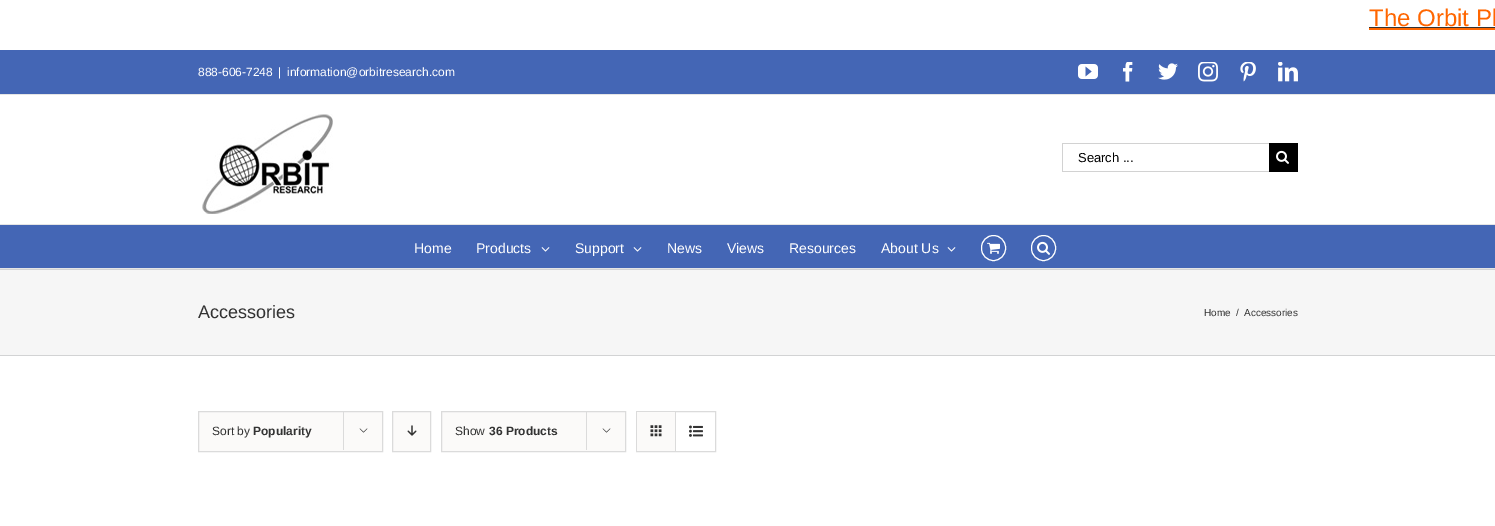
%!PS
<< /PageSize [1495 526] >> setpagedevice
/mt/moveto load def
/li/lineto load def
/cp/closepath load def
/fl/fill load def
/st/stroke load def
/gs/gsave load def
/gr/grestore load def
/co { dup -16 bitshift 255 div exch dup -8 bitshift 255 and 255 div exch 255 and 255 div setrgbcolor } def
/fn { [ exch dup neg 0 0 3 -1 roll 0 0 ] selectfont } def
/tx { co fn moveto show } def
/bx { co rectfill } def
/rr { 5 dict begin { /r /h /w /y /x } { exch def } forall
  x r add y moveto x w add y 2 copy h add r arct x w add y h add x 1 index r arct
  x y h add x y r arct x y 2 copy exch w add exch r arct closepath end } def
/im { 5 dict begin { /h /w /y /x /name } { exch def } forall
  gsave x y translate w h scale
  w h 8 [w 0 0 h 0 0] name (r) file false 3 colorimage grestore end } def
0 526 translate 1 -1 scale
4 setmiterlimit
0 0 1495 526 16#FFFFFF bx
1369 28 126 2 16#FF6600 bx
1369 27 126 1 16#333333 bx
0 50 1495 44 16#4466B5 bx
0 94 1495 1 16#E5E5E5 bx
(media/1.raw) 1078 64 20 15 im
(media/2.raw) 1123 62 10 20 im
(media/3.raw) 1158 63 20 17 im
(media/4.raw) 1198 62 20 20 im
(media/5.raw) 1240 62 16 20 im
(media/6.raw) 1278 62 20 20 im
0 224 1495 1 16#E5E5E5 bx
(media/7.raw) 202 114 131 100 im
1062 143 207 1 16#D2D2D2 bx
1062 171 207 1 16#D2D2D2 bx
1062 143 1 29 16#D2D2D2 bx
1269 143 29 29 16#000000 bx
(media/8.raw) 1276 150 13 14 im
0 225 1495 43 16#4466B5 bx
0 268 1495 1 16#E5E5E5 bx
(media/9.raw) 541 247 9 5 im
(media/9.raw) 633 247 9 5 im
(media/9.raw) 947 247 9 5 im
16#FFFFFF co
981.5 235.5 24 25 12 rr st
(media/10.raw) 987 242 13 12 im
1031.5 235.5 24 25 12 rr st
(media/11.raw) 1037 241 13 14 im
0 270 1495 85 16#F6F6F6 bx
0 269 1495 1 16#D2D3D4 bx
0 355 1495 1 16#D2D3D4 bx
16#FBFAF9 co
198.5 411.5 mt 382.5 411.5 li 382.5 451.5 li 198.5 451.5 li cp gs fl gr
16#DBDBDB co
st
343 411 1 39 16#DBDBDB bx
(media/12.raw) 359 428 9 5 im
16#FBFAF9 co
392.5 411.5 mt 430.5 411.5 li 430.5 451.5 li 392.5 451.5 li cp gs fl gr
16#DBDBDB co
st
(media/13.raw) 407 425 10 11 im
16#FBFAF9 co
441.5 411.5 mt 625.5 411.5 li 625.5 451.5 li 441.5 451.5 li cp gs fl gr
16#DBDBDB co
st
586 411 1 39 16#DBDBDB bx
(media/12.raw) 602 428 9 5 im
636.5 411.5 79 40 rectstroke
637 412 38 39 16#FBFAF9 bx
675 412 1 39 16#DBDBDB bx
(media/14.raw) 650 425 12 12 im
(media/15.raw) 689 425 14 12 im
(The Orbit Pl) 1369 26 /LiberationSans-Regular 24 16#FF6600 tx
(888-606-7248) 198 76 /LiberationSans-Regular 12 16#FFFFFF tx
(|) 278 76 /LiberationSans-Regular 12 16#FFFFFF tx
(information@orbitresearch.com) 287 76 /LiberationSans-Regular 12 16#FFFFFF tx
(Search ...) 1078 162 /LiberationSans-Regular 13 16#000000 tx
(Home) 414 253 /LiberationSans-Regular 14 16#FFFFFF tx
(Products) 476 253 /LiberationSans-Regular 14 16#FFFFFF tx
(Support) 575 253 /LiberationSans-Regular 14 16#FFFFFF tx
(News) 667 253 /LiberationSans-Regular 14 16#FFFFFF tx
(Views) 727 253 /LiberationSans-Regular 14 16#FFFFFF tx
(Resources) 789 253 /LiberationSans-Regular 14 16#FFFFFF tx
(About Us) 881 253 /LiberationSans-Regular 14 16#FFFFFF tx
(Accessories) 198 318 /LiberationSans-Regular 18 16#333333 tx
(Home) 1204 316 /LiberationSans-Regular 10 16#333333 tx
(/) 1236 316 /LiberationSans-Regular 10 16#333333 tx
(Accessories) 1244 316 /LiberationSans-Regular 10 16#333333 tx
(Sort by) 212 435 /LiberationSans-Regular 12 16#333333 tx
(Popularity) 253 435 /LiberationSans-Bold 12 16#333333 tx
(Show) 455 435 /LiberationSans-Regular 12 16#333333 tx
(36 Products) 489 435 /LiberationSans-Bold 12 16#333333 tx
showpage
